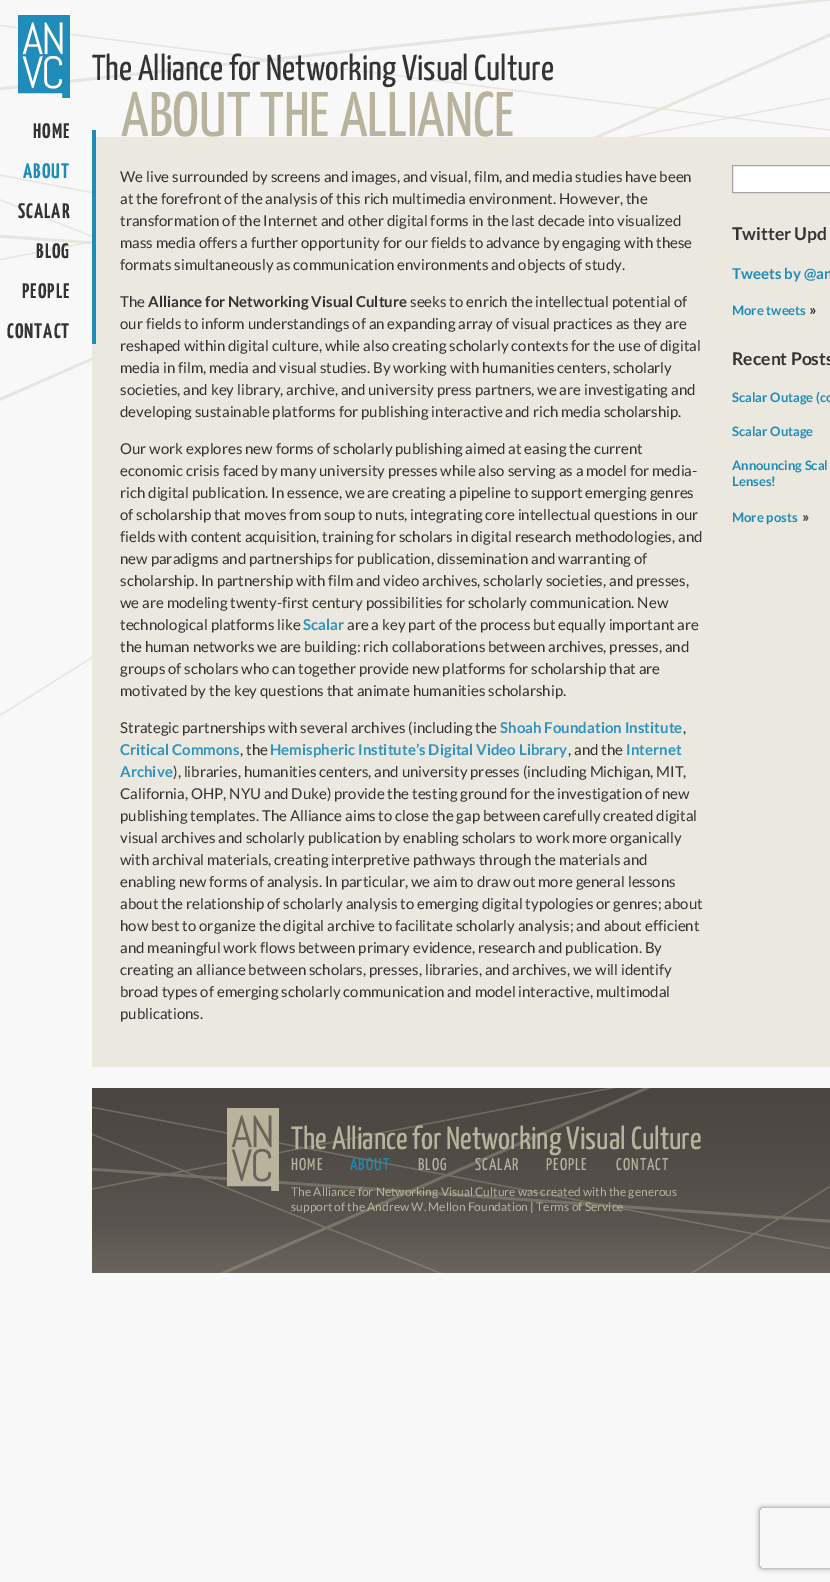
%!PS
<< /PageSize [830 1582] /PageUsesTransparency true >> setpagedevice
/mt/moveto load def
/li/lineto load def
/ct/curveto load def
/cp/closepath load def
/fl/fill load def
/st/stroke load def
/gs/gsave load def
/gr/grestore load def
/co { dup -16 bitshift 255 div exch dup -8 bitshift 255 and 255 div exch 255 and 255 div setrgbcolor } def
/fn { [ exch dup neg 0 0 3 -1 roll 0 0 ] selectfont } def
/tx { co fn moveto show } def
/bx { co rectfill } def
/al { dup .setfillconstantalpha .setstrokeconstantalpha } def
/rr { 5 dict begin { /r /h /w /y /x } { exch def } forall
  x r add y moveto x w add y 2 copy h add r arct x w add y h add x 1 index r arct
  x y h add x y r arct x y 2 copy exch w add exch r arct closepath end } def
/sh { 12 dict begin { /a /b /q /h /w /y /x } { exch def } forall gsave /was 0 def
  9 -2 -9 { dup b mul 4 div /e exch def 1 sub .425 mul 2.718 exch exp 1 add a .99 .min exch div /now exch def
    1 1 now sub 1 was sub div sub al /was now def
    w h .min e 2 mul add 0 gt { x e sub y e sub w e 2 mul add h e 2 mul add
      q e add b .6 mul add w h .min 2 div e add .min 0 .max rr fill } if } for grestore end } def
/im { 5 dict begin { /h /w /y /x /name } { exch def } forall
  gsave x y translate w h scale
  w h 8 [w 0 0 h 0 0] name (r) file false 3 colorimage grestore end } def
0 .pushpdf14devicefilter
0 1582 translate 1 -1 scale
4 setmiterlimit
0 0 830 1582 16#F8F8F8 bx
(media/1.raw) 0 0 830 716 im
(media/2.raw) 18 15 52 83 im
92 137 738 930 16#EBE8DF bx
92 130 4 214 16#1F8BB8 bx
16#FFFFFF co
732.5 165.5 mt 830.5 165.5 li 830.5 192.5 li 732.5 192.5 li cp gs fl gr
16#A5A5A5 co
st
(media/3.raw) 810 308 6 6 im
(media/4.raw) 803 515 6 6 im
(media/5.raw) 92 1088 738 185 im
(media/6.raw) 227 1108 52 83 im
gs
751 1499 mt 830 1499 li 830 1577 li 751 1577 li cp 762 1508 mt 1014 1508 li 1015 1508 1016 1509 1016 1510 ct 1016 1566 li 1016 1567 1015 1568 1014 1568 ct 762 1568 li 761 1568 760 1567 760 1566 ct 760 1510 li 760 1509 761 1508 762 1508 ct cp eoclip newpath
16#808080 co
760 1508 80 60 2 2.5 1 sh
gr
/YanoneKaffeesatz-Bold 21 fn
16#333333 co
33 138 mt 1 0 (HOME) ashow
16#1F8BB8 co
23 178 mt 1 0 (ABOUT) ashow
16#333333 co
18 218 mt 1 0 (SCALAR) ashow
36 258 mt 1 0 (BLOG) ashow
22 298 mt 1 0 (PEOPLE) ashow
7 338 mt 1 0 (CONTACT) ashow
(The Alliance for Networking Visual Culture) 92 80 /YanoneKaffeesatz-Regular 36 16#333333 tx
(ABOUT THE ALLIANCE) 121 136 /YanoneKaffeesatz-Regular 63 16#B8B39C tx
(We live surrounded by screens and images, and visual, film, and media studies have been) 120 182 /Lato-Regular 15 16#333333 tx
(at the forefront of the analysis of this rich multimedia environment. However, the) 120 204 /Lato-Regular 15 16#333333 tx
(transformation of the Internet and other digital forms in the last decade into visualized) 120 226 /Lato-Regular 15 16#333333 tx
(mass media offers a further opportunity for our fields to advance by engaging with these) 120 248 /Lato-Regular 15 16#333333 tx
(formats simultaneously as communication environments and objects of study.) 120 270 /Lato-Regular 15 16#333333 tx
(The) 120 307 /Lato-Regular 15 16#333333 tx
(Alliance for Networking Visual Culture) 148 307 /Lato-Bold 15 16#333333 tx
(seeks to enrich the intellectual potential of) 410 307 /Lato-Regular 15 16#333333 tx
(our fields to inform understandings of an expanding array of visual practices as they are) 120 329 /Lato-Regular 15 16#333333 tx
(reshaped within digital culture, while also creating scholarly contexts for the use of digital) 120 351 /Lato-Regular 15 16#333333 tx
(media in film, media and visual studies. By working with humanities centers, scholarly) 120 373 /Lato-Regular 15 16#333333 tx
(societies, and key library, archive, and university press partners, we are investigating and) 120 395 /Lato-Regular 15 16#333333 tx
(developing sustainable platforms for publishing interactive and rich media scholarship.) 120 417 /Lato-Regular 15 16#333333 tx
(Our work explores new forms of scholarly publishing aimed at easing the current) 120 454 /Lato-Regular 15 16#333333 tx
(economic crisis faced by many university presses while also serving as a model for media-) 120 476 /Lato-Regular 15 16#333333 tx
(rich digital publication. In essence, we are creating a pipeline to support emerging genres) 120 498 /Lato-Regular 15 16#333333 tx
(of scholarship that moves from soup to nuts, integrating core intellectual questions in our) 120 520 /Lato-Regular 15 16#333333 tx
(fields with content acquisition, training for scholars in digital research methodologies, and) 120 542 /Lato-Regular 15 16#333333 tx
(new paradigms and partnerships for publication, dissemination and warranting of) 120 564 /Lato-Regular 15 16#333333 tx
(scholarship. In partnership with film and video archives, scholarly societies, and presses,) 120 586 /Lato-Regular 15 16#333333 tx
(we are modeling twenty-first century possibilities for scholarly communication. New) 120 608 /Lato-Regular 15 16#333333 tx
(technological platforms like) 120 630 /Lato-Regular 15 16#333333 tx
(Scalar) 303 630 /Lato-Bold 15 16#2F93BD tx
(are a key part of the process but equally important are) 347 630 /Lato-Regular 15 16#333333 tx
(the human networks we are building: rich collaborations between archives, presses, and) 120 652 /Lato-Regular 15 16#333333 tx
(groups of scholars who can together provide new platforms for scholarship that are) 120 674 /Lato-Regular 15 16#333333 tx
(motivated by the key questions that animate humanities scholarship.) 120 696 /Lato-Regular 15 16#333333 tx
(Strategic partnerships with several archives \(including the) 120 733 /Lato-Regular 15 16#333333 tx
(Shoah Foundation Institute) 500 733 /Lato-Bold 15 16#2F93BD tx
(,) 683 733 /Lato-Regular 15 16#333333 tx
(Critical Commons) 120 755 /Lato-Bold 15 16#2F93BD tx
(, the) 240 755 /Lato-Regular 15 16#333333 tx
(Hemispheric Institute’s Digital Video Library) 270 755 /Lato-Bold 15 16#2F93BD tx
(, and the) 568 755 /Lato-Regular 15 16#333333 tx
(Internet) 626 755 /Lato-Bold 15 16#2F93BD tx
(Archive) 120 777 /Lato-Bold 15 16#2F93BD tx
(\), libraries, humanities centers, and university presses \(including Michigan, MIT,) 173 777 /Lato-Regular 15 16#333333 tx
(California, OHP, NYU and Duke\) provide the testing ground for the investigation of new) 120 799 /Lato-Regular 15 16#333333 tx
(publishing templates. The Alliance aims to close the gap between carefully created digital) 120 821 /Lato-Regular 15 16#333333 tx
(visual archives and scholarly publication by enabling scholars to work more organically) 120 843 /Lato-Regular 15 16#333333 tx
(with archival materials, creating interpretive pathways through the materials and) 120 865 /Lato-Regular 15 16#333333 tx
(enabling new forms of analysis. In particular, we aim to draw out more general lessons) 120 887 /Lato-Regular 15 16#333333 tx
(about the relationship of scholarly analysis to emerging digital typologies or genres; about) 120 909 /Lato-Regular 15 16#333333 tx
(how best to organize the digital archive to facilitate scholarly analysis; and about efficient) 120 931 /Lato-Regular 15 16#333333 tx
(and meaningful work flows between primary evidence, research and publication. By) 120 953 /Lato-Regular 15 16#333333 tx
(creating an alliance between scholars, presses, libraries, and archives, we will identify) 120 975 /Lato-Regular 15 16#333333 tx
(broad types of emerging scholarly communication and model interactive, multimodal) 120 997 /Lato-Regular 15 16#333333 tx
(publications.) 120 1019 /Lato-Regular 15 16#333333 tx
(Twitter Upd) 732 240 /Lato-Bold 17.5 16#333333 tx
(Tweets by @an) 732 279 /Lato-Bold 15 16#1F8BB8 tx
(More tweets) 732 315 /Lato-Bold 13 16#1F8BB8 tx
(Recent Posts) 732 365 /Lato-Bold 17.5 16#333333 tx
(Scalar Outage \(co) 732 402 /Lato-Bold 13 16#1F8BB8 tx
(Scalar Outage) 732 436 /Lato-Bold 13 16#1F8BB8 tx
(Announcing Scal) 732 470 /Lato-Bold 13 16#1F8BB8 tx
(Lenses!) 732 486 /Lato-Bold 13 16#1F8BB8 tx
(More posts) 732 522 /Lato-Bold 13 16#1F8BB8 tx
(The Alliance for Networking Visual Culture) 291 1149 /YanoneKaffeesatz-Regular 32 16#B8B39C tx
/YanoneKaffeesatz-Regular 17 fn
291 1170 mt 1 0 (HOME) ashow
16#1F8BB8 co
350 1170 mt 1 0 (ABOUT) ashow
16#B8B39C co
418 1170 mt 1 0 (BLOG) ashow
475 1170 mt 1 0 (SCALAR) ashow
546 1170 mt 1 0 (PEOPLE) ashow
616 1170 mt 1 0 (CONTACT) ashow
(The Alliance for Networking Visual Culture was created with the generous) 291 1196 /Lato-Regular 12 16#B8B39C tx
(support of the Andrew W. Mellon Foundation | Terms of Service) 291 1211 /Lato-Regular 12 16#B8B39C tx
.poppdf14devicefilter showpage
